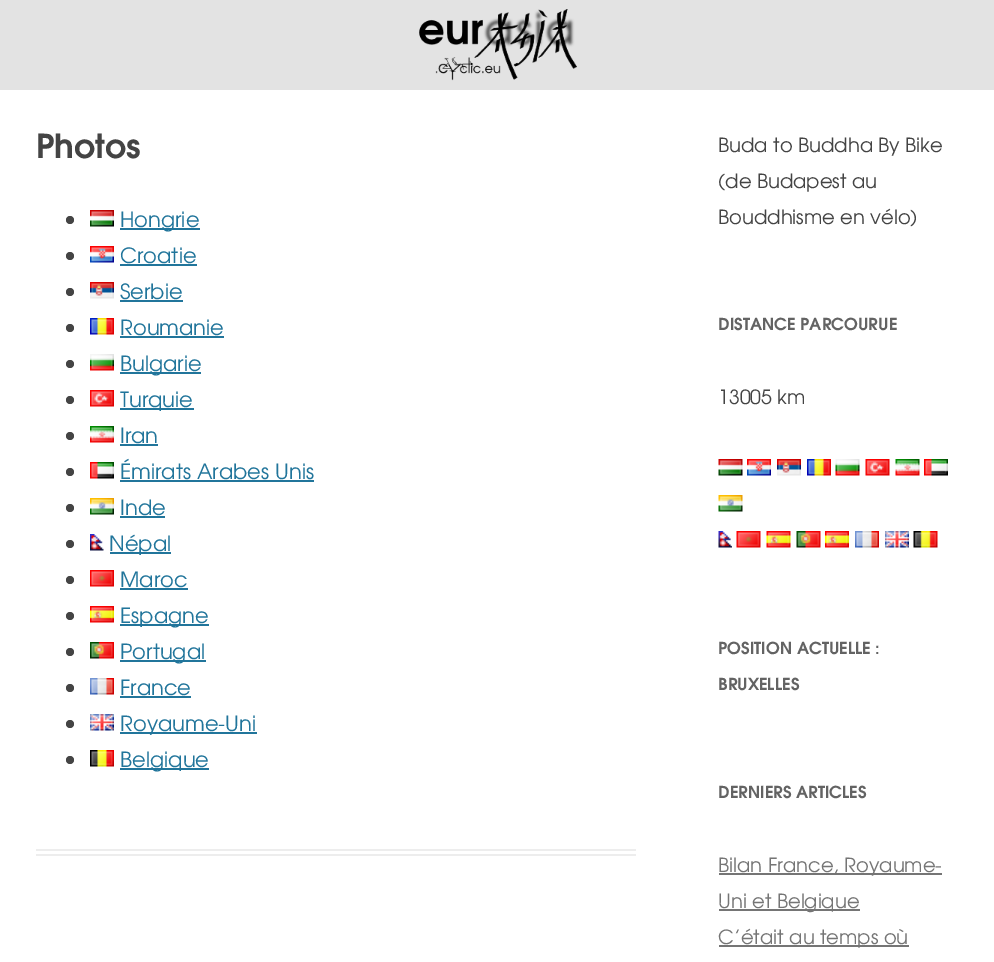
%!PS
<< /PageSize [994 962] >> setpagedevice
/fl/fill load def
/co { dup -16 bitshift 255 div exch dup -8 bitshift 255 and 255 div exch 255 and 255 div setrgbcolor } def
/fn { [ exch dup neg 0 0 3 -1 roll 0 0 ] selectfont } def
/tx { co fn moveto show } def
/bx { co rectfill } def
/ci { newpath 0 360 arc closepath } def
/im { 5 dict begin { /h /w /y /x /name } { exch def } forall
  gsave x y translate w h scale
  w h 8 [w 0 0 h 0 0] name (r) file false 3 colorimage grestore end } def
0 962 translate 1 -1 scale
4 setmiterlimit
0 0 994 962 16#FFFFFF bx
0 0 994 90 16#E3E3E3 bx
(media/1.raw) 419 9 158 72 im
36 849 600 2 16#EDEDED bx
36 854 600 2 16#EDEDED bx
16#444444 co
70 220 4 ci fl
(media/2.raw) 90 210 24 17 im
120 228 80 2 16#21759B bx
16#444444 co
70 256 4 ci fl
(media/3.raw) 90 246 24 17 im
120 264 77 2 16#21759B bx
16#444444 co
70 292 4 ci fl
(media/4.raw) 90 282 24 17 im
120 300 63 2 16#21759B bx
16#444444 co
70 328 4 ci fl
(media/5.raw) 90 318 24 17 im
120 336 104 2 16#21759B bx
16#444444 co
70 364 4 ci fl
(media/6.raw) 90 354 24 17 im
120 372 81 2 16#21759B bx
16#444444 co
70 400 4 ci fl
(media/7.raw) 90 390 24 17 im
120 408 74 2 16#21759B bx
16#444444 co
70 436 4 ci fl
(media/8.raw) 90 426 24 17 im
120 444 38 2 16#21759B bx
16#444444 co
70 472 4 ci fl
(media/9.raw) 90 462 24 17 im
120 480 194 2 16#21759B bx
16#444444 co
70 508 4 ci fl
(media/10.raw) 90 498 24 17 im
120 516 45 2 16#21759B bx
16#444444 co
70 544 4 ci fl
(media/11.raw) 90 534 14 17 im
110 552 61 2 16#21759B bx
16#444444 co
70 580 4 ci fl
(media/12.raw) 90 570 24 17 im
120 588 68 2 16#21759B bx
16#444444 co
70 616 4 ci fl
(media/13.raw) 90 606 24 17 im
120 624 89 2 16#21759B bx
16#444444 co
70 652 4 ci fl
(media/14.raw) 90 642 24 17 im
120 660 86 2 16#21759B bx
16#444444 co
70 688 4 ci fl
(media/15.raw) 90 678 24 17 im
120 696 71 2 16#21759B bx
16#444444 co
70 724 4 ci fl
(media/16.raw) 90 714 24 17 im
120 732 137 2 16#21759B bx
16#444444 co
70 760 4 ci fl
(media/17.raw) 90 750 24 17 im
120 768 89 2 16#21759B bx
(media/18.raw) 718 459 25 17 im
(media/19.raw) 747 459 24 17 im
(media/4.raw) 777 459 24 17 im
(media/5.raw) 807 459 24 17 im
(media/20.raw) 835 459 25 17 im
(media/21.raw) 865 459 25 17 im
(media/22.raw) 895 459 25 17 im
(media/9.raw) 924 459 24 17 im
(media/23.raw) 718 495 25 17 im
(media/24.raw) 718 531 14 17 im
(media/25.raw) 736 531 25 17 im
(media/26.raw) 766 531 25 17 im
(media/27.raw) 796 531 25 17 im
(media/13.raw) 825 531 24 17 im
(media/15.raw) 855 531 24 17 im
(media/16.raw) 885 531 24 17 im
(media/28.raw) 913 531 25 17 im
719 873 223 2 16#757575 bx
719 909 141 2 16#757575 bx
719 945 190 2 16#757575 bx
(Photos) 36 158 /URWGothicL-SemiBold 33 16#444444 tx
(Hongrie) 120 227 /URWGothicL-Regular 21 16#21759B tx
(Croatie) 120 263 /URWGothicL-Regular 21 16#21759B tx
(Serbie) 120 299 /URWGothicL-Regular 21 16#21759B tx
(Roumanie) 120 335 /URWGothicL-Regular 21 16#21759B tx
(Bulgarie) 120 371 /URWGothicL-Regular 21 16#21759B tx
(Turquie) 120 407 /URWGothicL-Regular 21 16#21759B tx
(Iran) 120 443 /URWGothicL-Regular 21 16#21759B tx
(Émirats Arabes Unis) 120 479 /URWGothicL-Regular 21 16#21759B tx
(Inde) 120 515 /URWGothicL-Regular 21 16#21759B tx
(Népal) 109 551 /URWGothicL-Regular 21 16#21759B tx
(Maroc) 120 587 /URWGothicL-Regular 21 16#21759B tx
(Espagne) 120 623 /URWGothicL-Regular 21 16#21759B tx
(Portugal) 120 659 /URWGothicL-Regular 21 16#21759B tx
(France) 120 695 /URWGothicL-Regular 21 16#21759B tx
(Royaume-Uni) 120 731 /URWGothicL-Regular 21 16#21759B tx
(Belgique) 120 767 /URWGothicL-Regular 21 16#21759B tx
(Buda to Buddha By Bike) 718 152 /URWGothicL-Regular 19.5 16#444444 tx
(\(de Budapest au) 718 188 /URWGothicL-Regular 19.5 16#444444 tx
(Bouddhisme en vélo\)) 718 224 /URWGothicL-Regular 19.5 16#444444 tx
(DISTANCE PARCOURUE) 718 330 /URWGothicL-SemiBold 16.5 16#636363 tx
(13005 km) 718 404 /URWGothicL-Regular 19.5 16#444444 tx
(POSITION ACTUELLE :) 718 654 /URWGothicL-SemiBold 16.5 16#636363 tx
(BRUXELLES) 718 690 /URWGothicL-SemiBold 16.5 16#636363 tx
(DERNIERS ARTICLES) 718 798 /URWGothicL-SemiBold 16.5 16#636363 tx
(Bilan France, Royaume-) 718 872 /URWGothicL-Regular 19.5 16#757575 tx
(Uni et Belgique) 718 908 /URWGothicL-Regular 19.5 16#757575 tx
(C’était au temps où) 718 944 /URWGothicL-Regular 19.5 16#757575 tx
showpage
